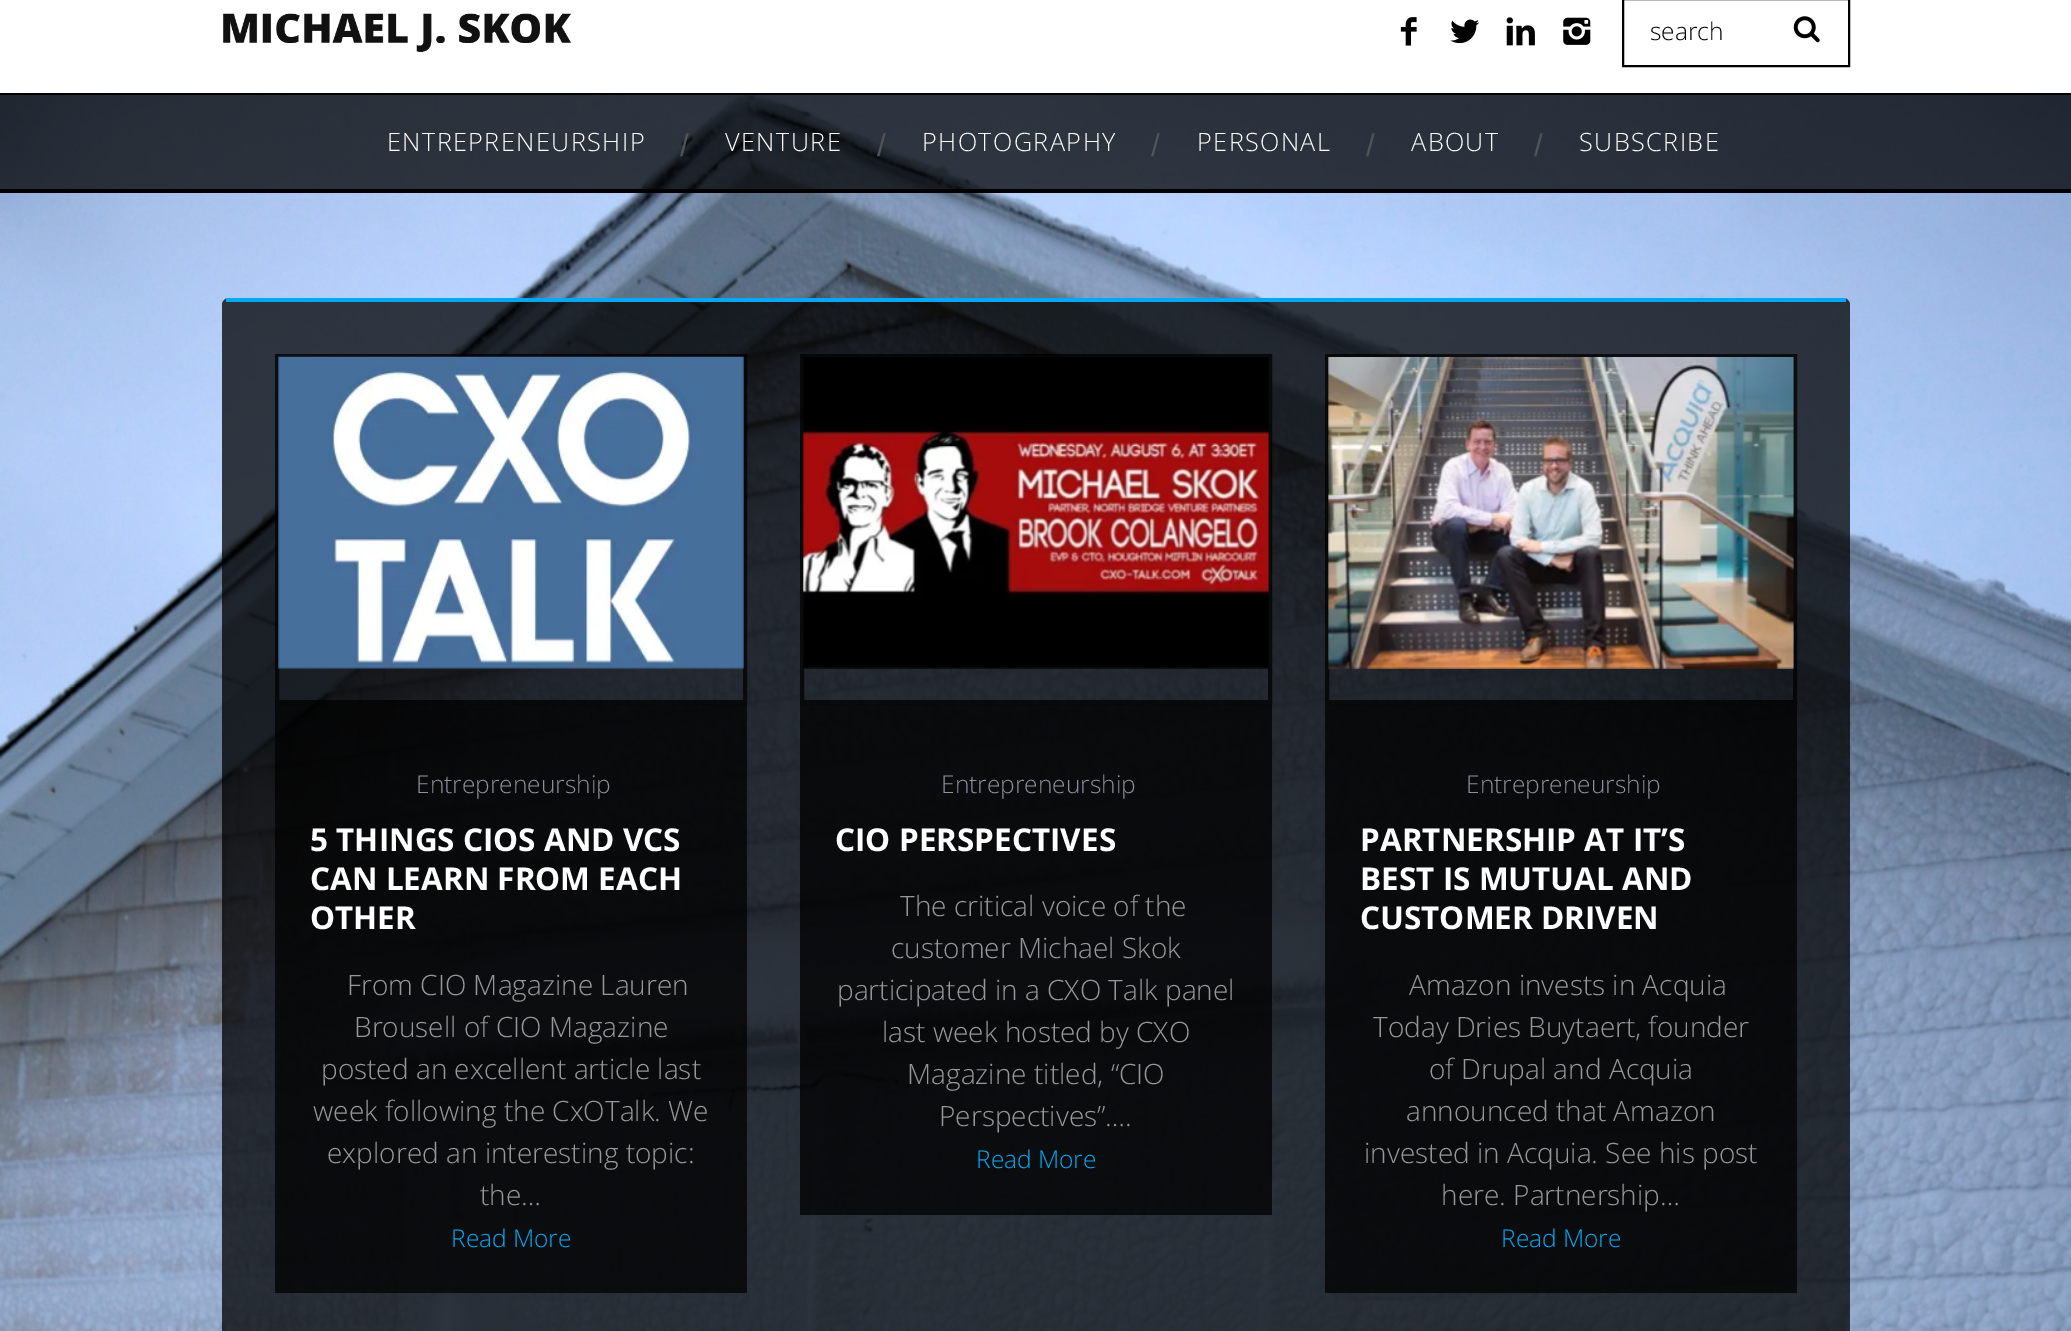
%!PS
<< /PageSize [2071 1331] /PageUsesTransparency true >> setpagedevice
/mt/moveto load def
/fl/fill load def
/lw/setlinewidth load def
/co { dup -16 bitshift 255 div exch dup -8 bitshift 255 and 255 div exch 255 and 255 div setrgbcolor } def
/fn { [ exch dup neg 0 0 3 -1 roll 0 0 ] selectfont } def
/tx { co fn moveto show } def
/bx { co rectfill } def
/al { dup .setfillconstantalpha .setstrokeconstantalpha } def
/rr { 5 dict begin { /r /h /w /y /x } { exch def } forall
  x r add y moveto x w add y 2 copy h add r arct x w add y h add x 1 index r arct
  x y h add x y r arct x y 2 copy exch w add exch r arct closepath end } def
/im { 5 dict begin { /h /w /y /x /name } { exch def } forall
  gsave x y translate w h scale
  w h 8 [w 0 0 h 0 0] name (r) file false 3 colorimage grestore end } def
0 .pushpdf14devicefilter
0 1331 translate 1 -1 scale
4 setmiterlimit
0 0 2071 1331 16#FFFFFF bx
(media/1.raw) 0 95 2071 1236 im
(media/2.raw) 223 13 348 39 im
(media/3.raw) 1400 17 17 29 im
(media/4.raw) 1450 19 30 25 im
(media/5.raw) 1506 17 29 29 im
(media/6.raw) 1563 17 28 28 im
16#000000 co
2 lw
1623 -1 226 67 rectstroke
(media/7.raw) 1793 16 27 27 im
0.75 al
0 95 2071 94 16#000000 bx
1 al
0 93 2071 2 16#000000 bx
0 189 2071 4 16#000000 bx
0.75 al
222 298 1628 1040 7 rr fl
1 al
226 298 1620 4 16#03A9F4 bx
0.75 al
16#000000 co
4 lw
277 356 468 346 rectstroke
1 al
(media/8.raw) 278 356 466 313 im
0.75 al
275 704 472 589 16#000000 bx
802 356 468 346 rectstroke
1 al
(media/9.raw) 803 357 466 312 im
0.75 al
800 704 472 511 16#000000 bx
1327 356 468 346 rectstroke
1 al
(media/10.raw) 1328 357 466 312 im
0.75 al
1325 704 472 589 16#000000 bx
1 al
(search) 1650 40 /OpenSans-Light 24.5 16#000000 tx
/OpenSans-Light 25.25 fn
16#FFFFFF co
387 151 mt 1.4 0 (ENTREPRENEURSHIP) ashow
/LiberationSans-Regular 31.5 fn
16#515455 co
680 156 mt 1.4 0 (/) ashow
/OpenSans-Light 25.25 fn
16#FFFFFF co
725 151 mt 1.4 0 (VENTURE) ashow
/LiberationSans-Regular 31.5 fn
16#515455 co
877 156 mt 1.4 0 (/) ashow
/OpenSans-Light 25.25 fn
16#FFFFFF co
922 151 mt 1.4 0 (PHOTOGRAPHY) ashow
/LiberationSans-Regular 31.5 fn
16#515455 co
1151 156 mt 1.4 0 (/) ashow
/OpenSans-Light 25.25 fn
16#FFFFFF co
1197 151 mt 1.4 0 (PERSONAL) ashow
/LiberationSans-Regular 31.5 fn
16#515455 co
1366 156 mt 1.4 0 (/) ashow
/OpenSans-Light 25.25 fn
16#FFFFFF co
1411 151 mt 1.4 0 (ABOUT) ashow
/LiberationSans-Regular 31.5 fn
16#515455 co
1534 156 mt 1.4 0 (/) ashow
/OpenSans-Light 25.25 fn
16#FFFFFF co
1579 151 mt 1.4 0 (SUBSCRIBE) ashow
(Entrepreneurship) 416 793 /OpenSans-Light 24.5 16#8C919B tx
(5 THINGS CIOS AND VCS) 310 851 /OpenSans-Bold 31.5 16#FFFFFF tx
(CAN LEARN FROM EACH) 310 890 /OpenSans-Bold 31.5 16#FFFFFF tx
(OTHER) 310 929 /OpenSans-Bold 31.5 16#FFFFFF tx
(From CIO Magazine Lauren) 347 995 /OpenSans-Light 28 16#979797 tx
(Brousell of CIO Magazine) 354 1037 /OpenSans-Light 28 16#979797 tx
(posted an excellent article last) 321 1079 /OpenSans-Light 28 16#979797 tx
(week following the CxOTalk. We) 313 1121 /OpenSans-Light 28 16#979797 tx
(explored an interesting topic:) 327 1163 /OpenSans-Light 28 16#979797 tx
(the…) 480 1205 /OpenSans-Light 28 16#979797 tx
(Read More) 451 1247 /OpenSans-Light 24.5 16#03A9F4 tx
(Entrepreneurship) 941 793 /OpenSans-Light 24.5 16#8C919B tx
(CIO PERSPECTIVES) 835 851 /OpenSans-Bold 31.5 16#FFFFFF tx
(The critical voice of the) 900 916 /OpenSans-Light 28 16#979797 tx
(customer Michael Skok) 891 958 /OpenSans-Light 28 16#979797 tx
(participated in a CXO Talk panel) 837 1000 /OpenSans-Light 28 16#979797 tx
(last week hosted by CXO) 882 1042 /OpenSans-Light 28 16#979797 tx
(Magazine titled, “CIO) 907 1084 /OpenSans-Light 28 16#979797 tx
(Perspectives”….) 939 1126 /OpenSans-Light 28 16#979797 tx
(Read More) 976 1168 /OpenSans-Light 24.5 16#03A9F4 tx
(Entrepreneurship) 1466 793 /OpenSans-Light 24.5 16#8C919B tx
(PARTNERSHIP AT IT’S) 1360 851 /OpenSans-Bold 31.5 16#FFFFFF tx
(BEST IS MUTUAL AND) 1360 890 /OpenSans-Bold 31.5 16#FFFFFF tx
(CUSTOMER DRIVEN) 1360 929 /OpenSans-Bold 31.5 16#FFFFFF tx
(Amazon invests in Acquia) 1409 995 /OpenSans-Light 28 16#979797 tx
(Today Dries Buytaert, founder) 1373 1037 /OpenSans-Light 28 16#979797 tx
(of Drupal and Acquia) 1429 1079 /OpenSans-Light 28 16#979797 tx
(announced that Amazon) 1406 1121 /OpenSans-Light 28 16#979797 tx
(invested in Acquia. See his post) 1364 1163 /OpenSans-Light 28 16#979797 tx
(here. Partnership…) 1441 1205 /OpenSans-Light 28 16#979797 tx
(Read More) 1501 1247 /OpenSans-Light 24.5 16#03A9F4 tx
.poppdf14devicefilter showpage
